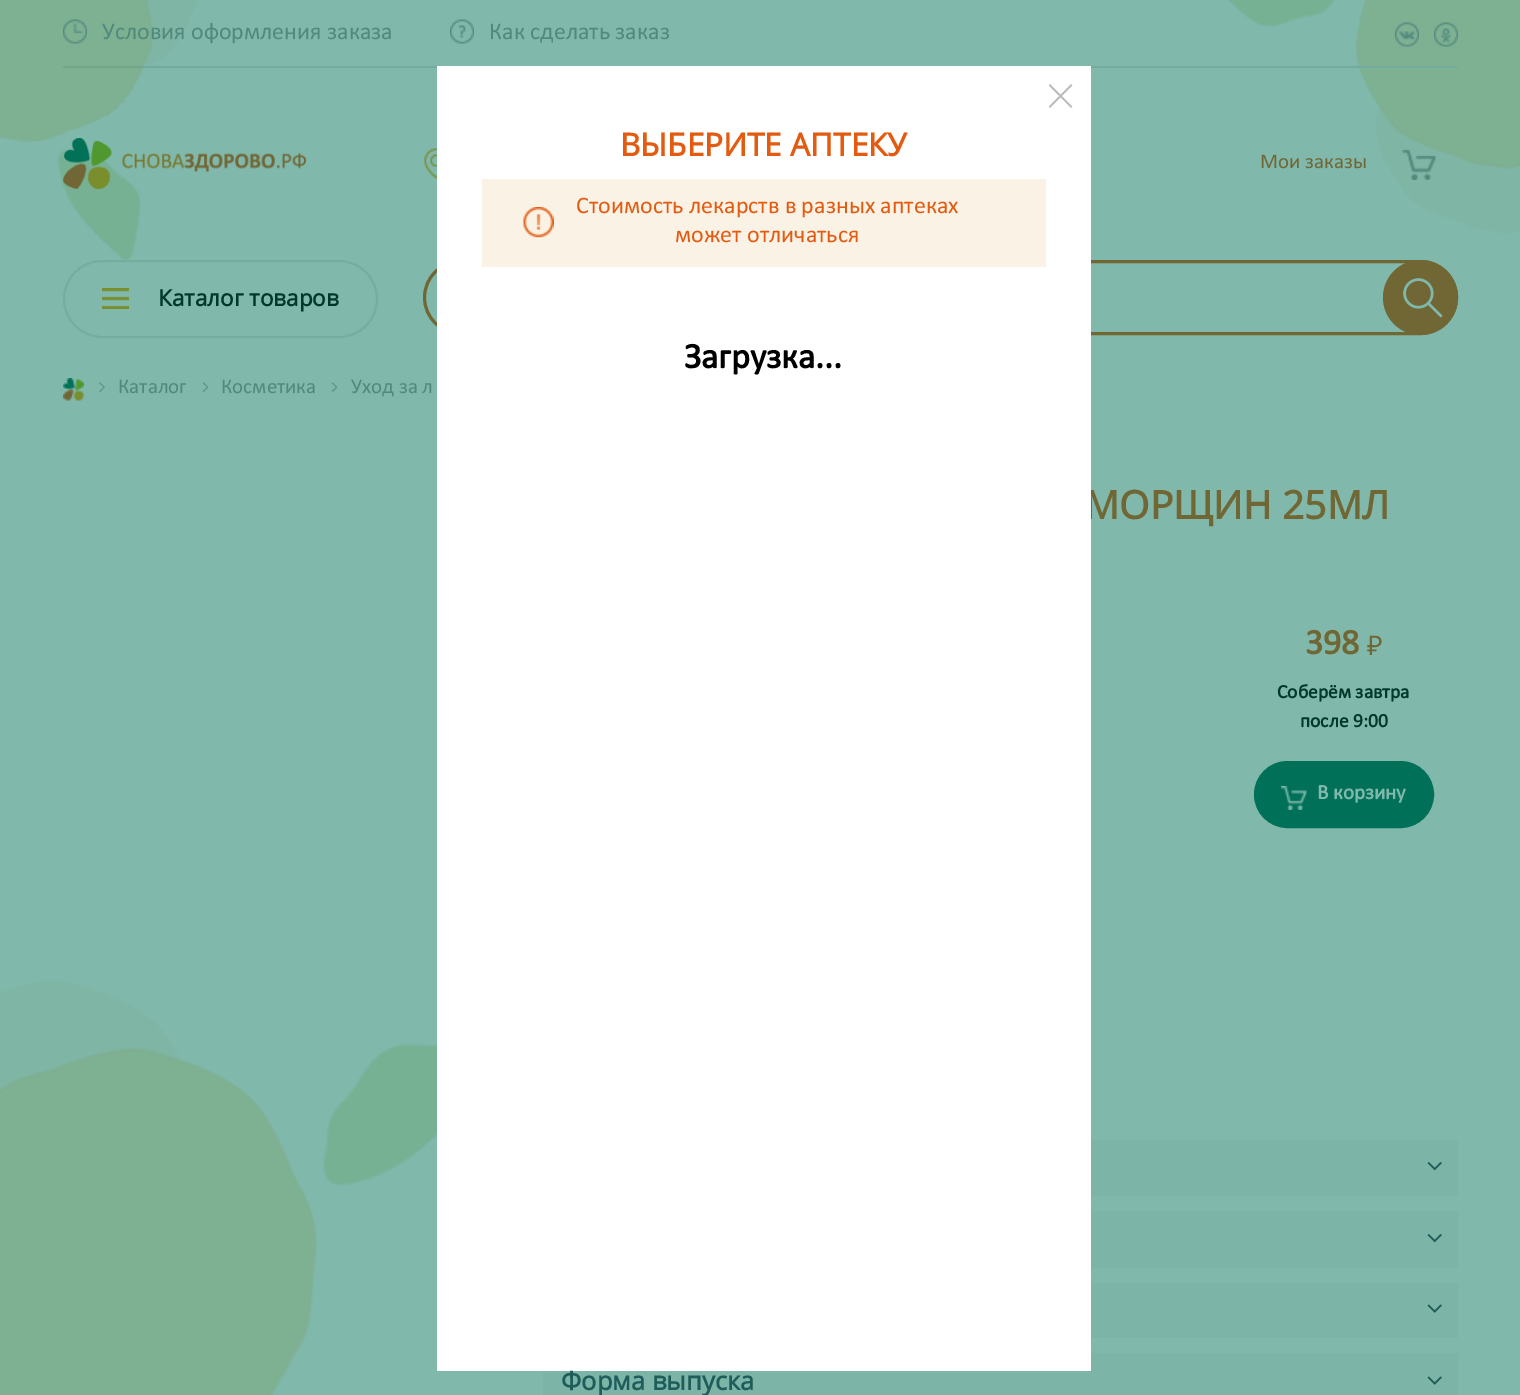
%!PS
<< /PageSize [1520 1395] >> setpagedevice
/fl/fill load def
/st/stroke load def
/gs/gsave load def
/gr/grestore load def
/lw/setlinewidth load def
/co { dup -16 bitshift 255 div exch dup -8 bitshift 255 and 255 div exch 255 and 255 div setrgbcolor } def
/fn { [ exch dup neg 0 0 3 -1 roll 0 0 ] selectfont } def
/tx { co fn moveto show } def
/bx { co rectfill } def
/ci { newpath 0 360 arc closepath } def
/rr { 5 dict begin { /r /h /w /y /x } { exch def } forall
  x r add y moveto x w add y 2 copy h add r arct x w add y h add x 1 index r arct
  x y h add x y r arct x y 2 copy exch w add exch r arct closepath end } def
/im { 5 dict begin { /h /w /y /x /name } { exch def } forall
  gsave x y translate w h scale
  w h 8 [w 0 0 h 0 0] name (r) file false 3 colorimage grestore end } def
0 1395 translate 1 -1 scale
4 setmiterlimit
0 0 1520 1395 16#80B8AC bx
(media/11.raw) 1228 0 292 234 im
63 66 1395 2 16#73AB9F bx
(media/1.raw) 0 0 198 260 im
(media/2.raw) 63 19 24 25 im
(media/3.raw) 450 19 24 25 im
(media/4.raw) 1395 22 24 25 im
(media/5.raw) 1434 22 24 25 im
(media/6.raw) 63 138 243 51 im
(media/7.raw) 424 148 13 31 im
(media/8.raw) 1402 149 34 31 im
16#75ADA1 co
2 lw
64 261 313 76 38 rr st
(media/9.raw) 102 288 27 21 im
16#716735 co
3 lw
424.5 261.5 1032 72 36 rr st
1420.5 297.5 37.5 ci fl
(media/10.raw) 1403 278 40 40 im
(media/14.raw) 0 980 437 415 im
(media/15.raw) 63 378 21 23 im
(media/16.raw) 99 382 6 11 im
(media/17.raw) 202 382 7 11 im
(media/17.raw) 331 382 7 11 im
16#007158 co
1255.5 762.5 177 64 32 rr gs fl gr
st
(media/18.raw) 1281 786 26 24 im
1091 1140 367 56 16#7CB4A8 bx
(media/19.raw) 1427 1162 15 9 im
1091 1211 367 57 16#7CB4A8 bx
(media/19.raw) 1427 1234 15 9 im
1091 1283 367 55 16#7CB4A8 bx
(media/20.raw) 1427 1304 15 9 im
543 1353 915 42 16#7CB4A8 bx
(media/20.raw) 1427 1376 15 9 im
(Условия оформления заказа) 102 39 /Calibri-Regular 24 16#518A7D tx
(Как сделать заказ) 489 39 /Calibri-Regular 24 16#518A7D tx
(Мои заказы) 1260 168 /Calibri-Regular 21 16#716735 tx
(Каталог товаров) 158 306 /OpenSans-Bold 22.5 16#00392C tx
(Каталог) 118 393 /Calibri-Regular 21 16#518A7D tx
(Косметика) 221 393 /Calibri-Regular 21 16#518A7D tx
(Уход за л) 351 393 /Calibri-Regular 21 16#518A7D tx
(МОРЩИН 25МЛ) 1084 519 /OpenSans-Bold 39 16#716735 tx
437 66 654 1305 16#FFFFFF bx
(media/12.raw) 1049 84 24 24 im
(Загрузка...) 684 368 /Calibri-Bold 36 16#000000 tx
482 179 564 88 16#FAF2E4 bx
(может отличаться) 675 242 /Calibri-Regular 24 16#E25B11 tx
(Стоимость лекарств в разных аптеках) 576 213 /Calibri-Regular 24 16#E25B11 tx
(media/13.raw) 523 207 31 31 im
(ВЫБЕРИТЕ АПТЕКУ) 620 156 /OpenSans-Bold 31.5 16#E25B11 tx
(398) 1305 654 /Calibri-Bold 36 16#716735 tx
(₽) 1367 655 /NotoSans-Regular 27 16#716735 tx
(Соберём завтра) 1277 698 /Calibri-Bold 19.5 16#00392C tx
(после 9:00) 1300 727 /Calibri-Bold 19.5 16#00392C tx
(В корзину) 1317 799 /Calibri-Bold 21 16#80B8AC tx
(Форма выпуска) 561 1390 /OpenSans-Bold 25.5 16#1F5D5A tx
showpage
